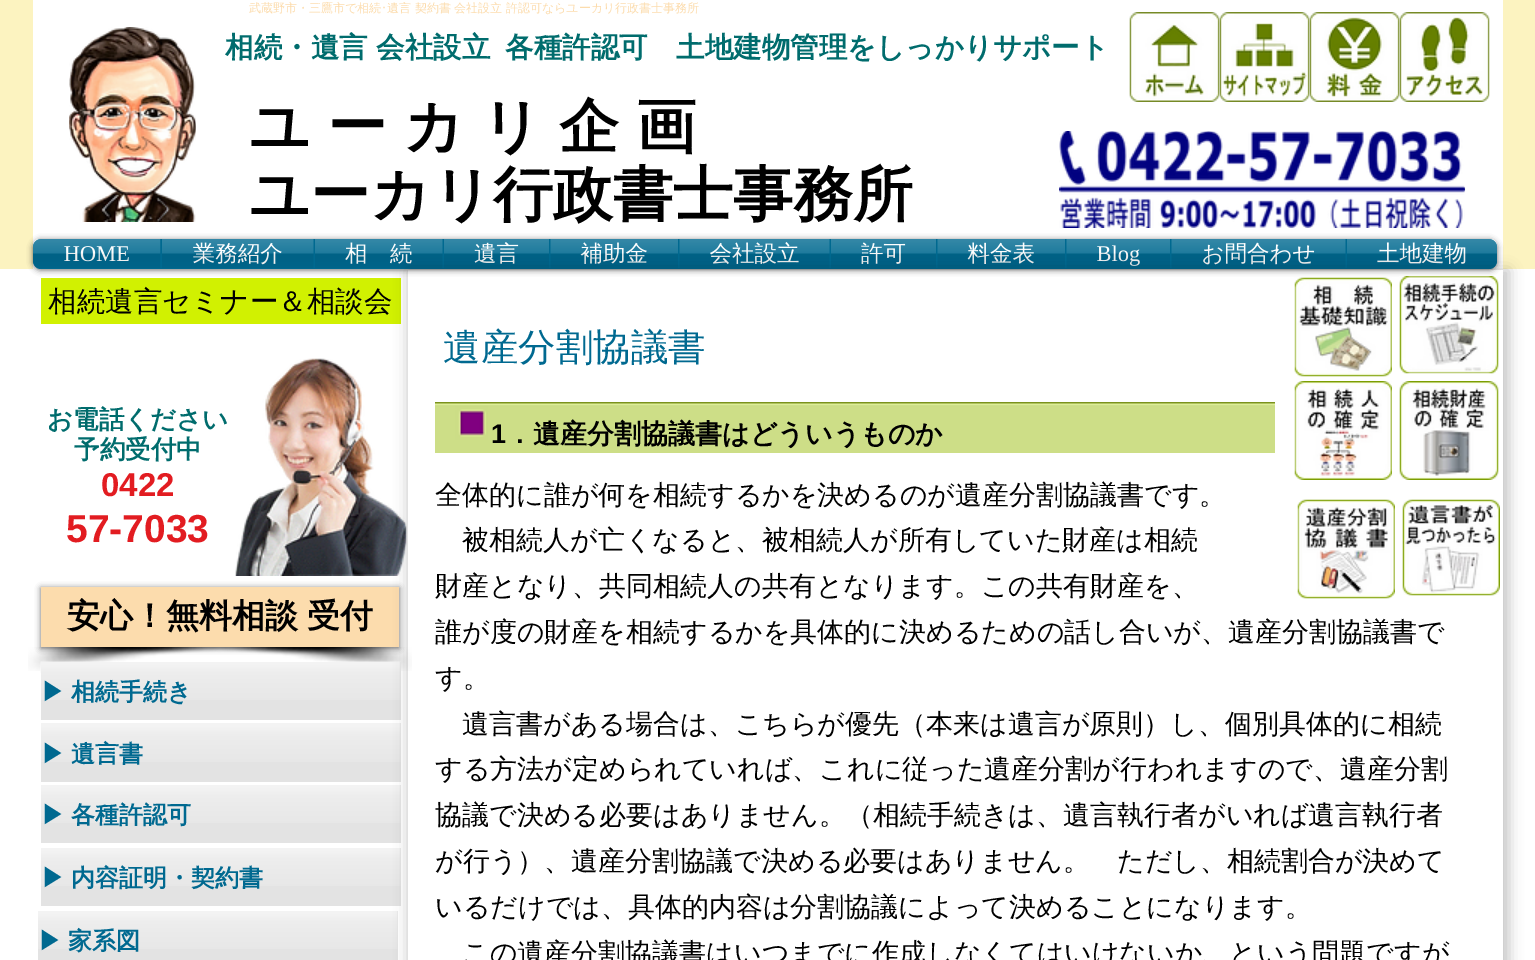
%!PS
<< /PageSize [1535 960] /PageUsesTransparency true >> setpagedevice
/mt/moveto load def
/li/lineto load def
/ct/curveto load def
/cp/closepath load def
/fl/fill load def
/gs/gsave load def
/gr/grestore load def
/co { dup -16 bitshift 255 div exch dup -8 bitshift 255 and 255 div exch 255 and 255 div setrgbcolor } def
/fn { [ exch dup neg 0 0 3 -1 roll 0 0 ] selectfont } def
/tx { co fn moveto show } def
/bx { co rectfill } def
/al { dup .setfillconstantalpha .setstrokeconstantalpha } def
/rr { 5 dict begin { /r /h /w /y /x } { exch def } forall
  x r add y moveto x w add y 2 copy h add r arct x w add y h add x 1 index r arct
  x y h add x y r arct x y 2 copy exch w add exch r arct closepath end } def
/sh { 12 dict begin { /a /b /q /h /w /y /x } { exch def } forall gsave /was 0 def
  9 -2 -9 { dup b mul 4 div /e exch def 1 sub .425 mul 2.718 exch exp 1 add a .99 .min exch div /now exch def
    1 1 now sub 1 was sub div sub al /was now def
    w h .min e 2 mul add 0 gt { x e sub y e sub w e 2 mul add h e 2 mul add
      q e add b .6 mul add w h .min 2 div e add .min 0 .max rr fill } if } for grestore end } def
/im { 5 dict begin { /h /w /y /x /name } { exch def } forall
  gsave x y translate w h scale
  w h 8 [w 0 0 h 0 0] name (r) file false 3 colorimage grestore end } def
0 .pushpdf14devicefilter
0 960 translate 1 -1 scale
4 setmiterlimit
0 0 1535 960 16#FFFFFF bx
0 0 1535 269 16#FCF3C0 bx
33 0 1470 269 16#FFFFFF bx
(media/1.raw) 69 27 127 195 im
(media/2.raw) 1129 12 91 90 im
(media/3.raw) 1219 12 91 90 im
(media/4.raw) 1309 12 91 90 im
(media/5.raw) 1399 12 91 90 im
(media/6.raw) 1059 131 407 97 im
16#000000 co
33 240 1464 30 8 3 .6 sh
(media/7.raw) 33 239 1464 29 im
16#006990 co
41 239 mt 161 239 li 161 269 li 41 269 li 36.5 269 33 265.5 33 261 ct 33 247 li 33 242.5 36.5 239 41 239 ct cp fl
161 239 1185 30 16#006990 bx
1346 239 mt 1489 239 li 1493.5 239 1497 242.5 1497 247 ct 1497 261 li 1497 265.5 1493.5 269 1489 269 ct 1346 269 li cp fl
41 278 360 46 16#D1F101 bx
(media/19.raw) 235 358 172 218 im
(media/27.raw) 28 647 223 24 im
(media/28.raw) 193 647 219 24 im
16#000000 co
41 588 358 60 0 3 .6 sh
41 587 358 60 16#FCDCAD bx
41 662 360 58 16#E3E3E3 bx
(media/29.raw) 40 661 361 39 im
41 723 360 59 16#E3E3E3 bx
(media/30.raw) 41 723 360 39 im
41 785 360 58 16#E3E3E3 bx
(media/31.raw) 41 785 360 38 im
41 848 360 58 16#E3E3E3 bx
(media/31.raw) 41 848 360 38 im
38 911 360 49 16#E3E3E3 bx
(media/31.raw) 38 911 360 38 im
(武蔵野市・三鷹市で相続) 249 12 /WenQuanYiZenHei-Medium 12 16#FCDCAD tx
(･) 381 12 /IPAPGothic-Regular 12 16#FCDCAD tx
(遺言 契約書 会社設立 許認可ならユーカリ行政書士事務所) 387 12 /WenQuanYiZenHei-Medium 12 16#FCDCAD tx
(相続・遺言 会社設立) 225 57 /WenQuanYiZenHei-Bold 28.5 16#006C6D tx
(各種許認可　土地建物管理をしっかりサポート) 505 57 /WenQuanYiZenHei-Bold 28.5 16#006C6D tx
/WenQuanYiZenHei-Bold 60 fn
16#000000 co
249 147 mt -1.5 0 32 (ユ ー カ リ 企 画) widthshow
(ユーカリ行政書士事務所) 249 215 /WenQuanYiZenHei-Bold 60 16#000000 tx
(HOME) 64 261 /LiberationSerif-Regular 22.5 16#FFFFFF tx
(media/8.raw) 33 239 128 29 im
(業務紹介) 193 261 /WenQuanYiZenHei-Medium 22.5 16#FFFFFF tx
(media/9.raw) 162 239 152 29 im
(相　続) 345 261 /WenQuanYiZenHei-Medium 22.5 16#FFFFFF tx
(media/10.raw) 315 239 128 29 im
(遺言) 474 261 /WenQuanYiZenHei-Medium 22.5 16#FFFFFF tx
(media/11.raw) 444 239 105 29 im
(補助金) 581 261 /WenQuanYiZenHei-Medium 22.5 16#FFFFFF tx
(media/12.raw) 550 239 128 29 im
(会社設立) 710 261 /WenQuanYiZenHei-Medium 22.5 16#FFFFFF tx
(media/13.raw) 679 239 151 29 im
(許可) 861 261 /WenQuanYiZenHei-Medium 22.5 16#FFFFFF tx
(media/14.raw) 831 239 105 29 im
(料金表) 968 261 /WenQuanYiZenHei-Medium 22.5 16#FFFFFF tx
(media/15.raw) 937 239 128 29 im
(Blog) 1097 261 /LiberationSerif-Regular 22.5 16#FFFFFF tx
(media/16.raw) 1066 239 104 29 im
(お問合わせ) 1202 261 /WenQuanYiZenHei-Medium 22.5 16#FFFFFF tx
(media/17.raw) 1171 239 175 29 im
(土地建物) 1377 261 /WenQuanYiZenHei-Medium 22.5 16#FFFFFF tx
(media/18.raw) 1347 239 150 29 im
(相続遺言セミナー＆相談会) 48 311 /WenQuanYiZenHei-Medium 28.5 16#000000 tx
(お電話ください) 47 428 /WenQuanYiZenHei-Bold 25.5 16#006C6D tx
(予約受付中) 74 458 /WenQuanYiZenHei-Bold 25.5 16#006C6D tx
(0422) 101 496 /LiberationSans-Bold 33 16#E21C21 tx
(57-7033) 66 542 /LiberationSans-Bold 39 16#E21C21 tx
gs
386 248 mt 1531 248 li 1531 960 li 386 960 li cp 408 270 mt 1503 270 li 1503 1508 li 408 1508 li cp eoclip newpath
16#000000 co
408 270 1101 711 0 7 .23 sh
gr
(遺産分割協議書) 443 360 /WenQuanYiZenHei-Medium 37.5 16#006990 tx
(media/20.raw) 1294 277 98 100 im
(media/21.raw) 1399 276 100 98 im
(media/22.raw) 435 402 840 51 im
(media/23.raw) 1294 381 98 99 im
(media/24.raw) 1399 381 100 99 im
(1) 491 443 /LiberationSans-Bold 27 16#000000 tx
(．遺産分割協議書はどういうものか) 506 443 /WenQuanYiZenHei-Bold 27 16#000000 tx
(全体的に誰が何を相続するかを決めるのが遺産分割協議書です。) 435 504 /WenQuanYiZenHei-Medium 27 16#000000 tx
(被相続人が亡くなると、被相続人が所有していた財産は相続) 462 549 /WenQuanYiZenHei-Medium 27 16#000000 tx
(財産となり、共同相続人の共有となります。この共有財産を、) 435 595 /WenQuanYiZenHei-Medium 27 16#000000 tx
(誰が度の財産を相続するかを具体的に決めるための話し合いが、遺産分割協議書で) 435 641 /WenQuanYiZenHei-Medium 27 16#000000 tx
(す。) 435 687 /WenQuanYiZenHei-Medium 27 16#000000 tx
(遺言書がある場合は、こちらが優先（本来は遺言が原則）し、個別具体的に相続) 462 733 /WenQuanYiZenHei-Medium 27 16#000000 tx
(する方法が定められていれば、これに従った遺産分割が行われますので、遺産分割) 435 778 /WenQuanYiZenHei-Medium 27 16#000000 tx
(協議で決める必要はありません。（相続手続きは、遺言執行者がいれば遺言執行者) 435 824 /WenQuanYiZenHei-Medium 27 16#000000 tx
(が行う）、遺産分割協議で決める必要はありません。　ただし、相続割合が決めて) 435 870 /WenQuanYiZenHei-Medium 27 16#000000 tx
(いるだけでは、具体的内容は分割協議によって決めることになります。) 435 916 /WenQuanYiZenHei-Medium 27 16#000000 tx
(この遺産分割協議書はいつまでに作成しなくてはいけないか、という問題ですが) 462 962 /WenQuanYiZenHei-Medium 27 16#000000 tx
(media/25.raw) 1297 499 98 100 im
(media/26.raw) 1402 499 98 97 im
/WenQuanYiZenHei-Bold 33 fn
67 627 mt -1 0 32 (安心！無料相談 受付) widthshow
(▶) 41 700 /WenQuanYiZenHei-Bold 24 16#006990 tx
(相続手続き) 71 700 /WenQuanYiZenHei-Bold 24 16#006990 tx
(▶) 41 762 /WenQuanYiZenHei-Bold 24 16#006990 tx
(遺言書) 71 762 /WenQuanYiZenHei-Bold 24 16#006990 tx
(▶) 41 823 /WenQuanYiZenHei-Bold 24 16#006990 tx
(各種許認可) 71 823 /WenQuanYiZenHei-Bold 24 16#006990 tx
(▶) 41 886 /WenQuanYiZenHei-Bold 24 16#006990 tx
(内容証明・契約書) 71 886 /WenQuanYiZenHei-Bold 24 16#006990 tx
(▶) 38 949 /WenQuanYiZenHei-Bold 24 16#006990 tx
(家系図) 68 949 /WenQuanYiZenHei-Bold 24 16#006990 tx
.poppdf14devicefilter showpage
